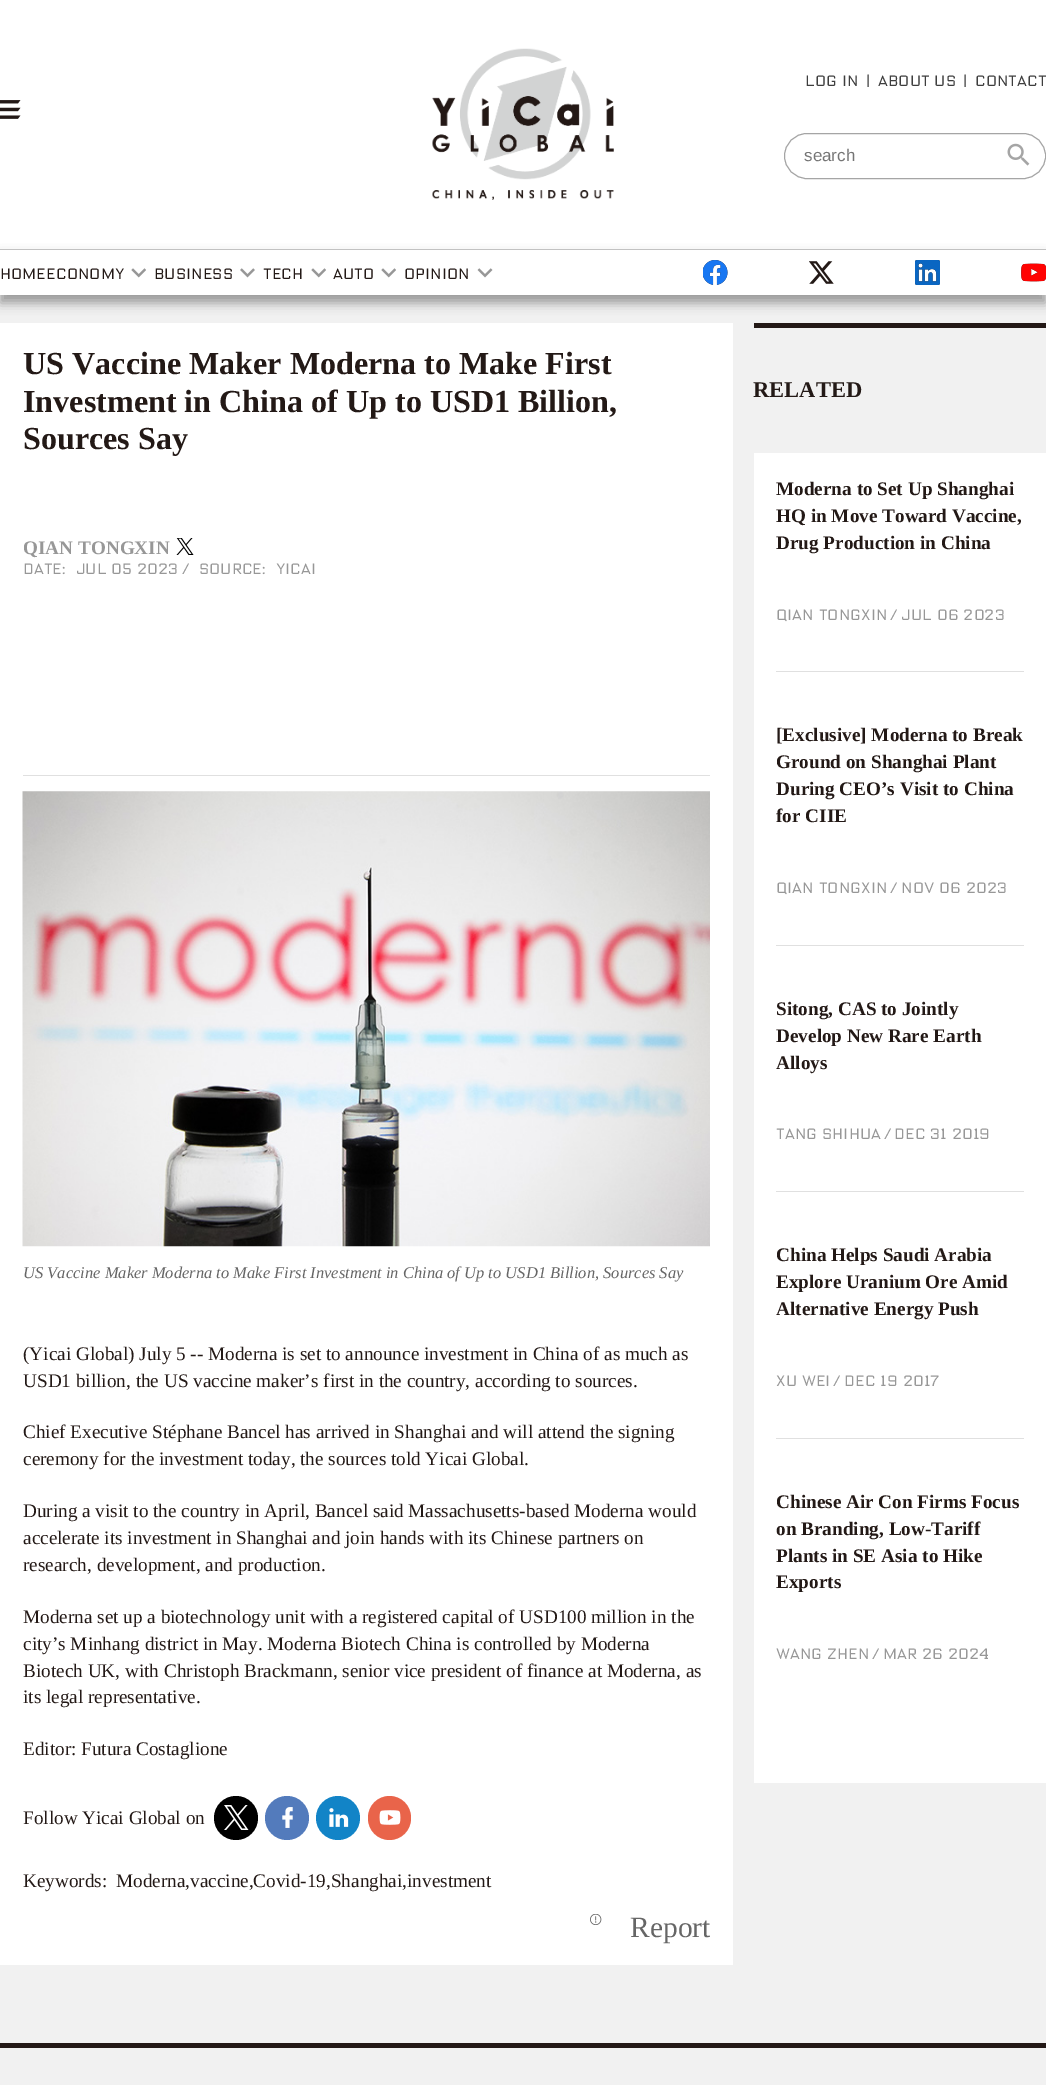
%!PS
<< /PageSize [1046 2085] /PageUsesTransparency true >> setpagedevice
/mt/moveto load def
/li/lineto load def
/cp/closepath load def
/fl/fill load def
/st/stroke load def
/gs/gsave load def
/gr/grestore load def
/co { dup -16 bitshift 255 div exch dup -8 bitshift 255 and 255 div exch 255 and 255 div setrgbcolor } def
/fn { [ exch dup neg 0 0 3 -1 roll 0 0 ] selectfont } def
/tx { co fn moveto show } def
/bx { co rectfill } def
/al { dup .setfillconstantalpha .setstrokeconstantalpha } def
/ci { newpath 0 360 arc closepath } def
/rr { 5 dict begin { /r /h /w /y /x } { exch def } forall
  x r add y moveto x w add y 2 copy h add r arct x w add y h add x 1 index r arct
  x y h add x y r arct x y 2 copy exch w add exch r arct closepath end } def
/sh { 12 dict begin { /a /b /q /h /w /y /x } { exch def } forall gsave /was 0 def
  9 -2 -9 { dup b mul 4 div /e exch def 1 sub .425 mul 2.718 exch exp 1 add a .99 .min exch div /now exch def
    1 1 now sub 1 was sub div sub al /was now def
    w h .min e 2 mul add 0 gt { x e sub y e sub w e 2 mul add h e 2 mul add
      q e add b .6 mul add w h .min 2 div e add .min 0 .max rr fill } if } for grestore end } def
/im { 5 dict begin { /h /w /y /x /name } { exch def } forall
  gsave x y translate w h scale
  w h 8 [w 0 0 h 0 0] name (r) file false 3 colorimage grestore end } def
0 .pushpdf14devicefilter
0 2085 translate 1 -1 scale
4 setmiterlimit
0 0 1046 2085 16#F1F1F1 bx
0 0 1046 295 16#FFFFFF bx
(media/1.raw) 0 100 21 19 im
(media/2.raw) 432 48 182 152 im
16#A5A5A5 co
784.5 133.5 261 45 22.5 rr st
(media/3.raw) 1007 143 23 23 im
gs
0 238 mt 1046 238 li 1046 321 li 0 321 li cp 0 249 mt 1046 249 li 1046 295 li 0 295 li cp eoclip newpath
16#999999 co
0 256 1046 47 0 5.5 1 sh
gr
0 249 1046 1 16#C2C2C2 bx
(media/4.raw) 131 268 15 10 im
(media/5.raw) 240 268 15 10 im
(media/4.raw) 311 268 15 10 im
(media/4.raw) 381 268 15 10 im
(media/6.raw) 477 268 16 10 im
(media/7.raw) 703 260 25 25 im
(media/8.raw) 809 261 25 23 im
(media/9.raw) 915 260 25 25 im
(media/10.raw) 1021 263 25 19 im
0 323 733 1642 16#FFFFFF bx
(media/11.raw) 176 538 18 17 im
23 775 687 1 16#E0E0E0 bx
(media/12.raw) 22 791 688 456 im
16#000000 co
236 1818 22 ci fl
(media/13.raw) 224 1805 25 25 im
16#537BBC co
287 1818 22 ci fl
(media/14.raw) 282 1807 11 21 im
16#1284C7 co
338 1818 22 ci fl
(media/15.raw) 329 1808 20 19 im
16#E9644A co
368 1796 43 44 21.5 rr fl
(media/16.raw) 379 1810 22 15 im
(media/17.raw) 590 1914 12 11 im
754 323 292 5 16#231916 bx
754 453 292 1330 16#FFFFFF bx
776 671 248 1 16#E0E0E0 bx
776 945 248 1 16#E0E0E0 bx
776 1191 248 1 16#E0E0E0 bx
776 1438 248 1 16#E0E0E0 bx
0 2043 1046 5 16#231916 bx
(LOG IN) 805 86 /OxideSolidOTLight-Light 15 16#3E3E3E tx
(|) 866 86 /OxideSolidOTLight-Light 15 16#3E3E3E tx
(ABOUT US) 878 86 /OxideSolidOTLight-Light 15 16#3E3E3E tx
(|) 963 86 /OxideSolidOTLight-Light 15 16#3E3E3E tx
(CONTACT) 975 86 /OxideSolidOTLight-Light 15 16#3E3E3E tx
(search) 804 161 /LiberationSans-Regular 17 16#757575 tx
(HOMEECONOMY) 0 279 /OxideSolidOTLight-Light 15 16#231916 tx
(BUSINESS) 154 279 /OxideSolidOTLight-Light 15 16#231916 tx
(TECH) 263 279 /OxideSolidOTLight-Light 15 16#231916 tx
(AUTO) 333 279 /OxideSolidOTLight-Light 15 16#231916 tx
(OPINION) 404 279 /OxideSolidOTLight-Light 15 16#231916 tx
(US Vaccine Maker Moderna to Make First) 23 374 /LiberationSerif-Bold 32.1 16#231916 tx
(Investment in China of Up to USD1 Billion,) 23 412 /LiberationSerif-Bold 32.1 16#231916 tx
(Sources Say) 23 449 /LiberationSerif-Bold 32.1 16#231916 tx
(QIAN TONGXIN) 23 554 /LiberationSerif-Bold 19.2 16#979797 tx
(DATE:  JUL 05 2023) 23 574 /OxideSolidOTLight-Light 15 16#979797 tx
(/) 182 574 /OxideSolidOTLight-Light 15 16#979797 tx
(SOURCE:  YICAI) 199 574 /OxideSolidOTLight-Light 15 16#979797 tx
(US Vaccine Maker Moderna to Make First Investment in China of Up to USD1 Billion, Sources Say) 23 1278 /LiberationSerif-Italic 16.5 16#666666 tx
(\(Yicai Global\) July 5 -- Moderna is set to announce investment in China of as much as) 23 1360 /LiberationSerif-Regular 19.2 16#231916 tx
(USD1 billion, the US vaccine maker’s first in the country, according to sources.) 23 1387 /LiberationSerif-Regular 19.2 16#231916 tx
(Chief Executive Stéphane Bancel has arrived in Shanghai and will attend the signing) 23 1438 /LiberationSerif-Regular 19.2 16#231916 tx
(ceremony for the investment today, the sources told Yicai Global.) 23 1465 /LiberationSerif-Regular 19.2 16#231916 tx
(During a visit to the country in April, Bancel said Massachusetts-based Moderna would) 23 1517 /LiberationSerif-Regular 19.2 16#231916 tx
(accelerate its investment in Shanghai and join hands with its Chinese partners on) 23 1544 /LiberationSerif-Regular 19.2 16#231916 tx
(research, development, and production.) 23 1571 /LiberationSerif-Regular 19.2 16#231916 tx
(Moderna set up a biotechnology unit with a registered capital of USD100 million in the) 23 1623 /LiberationSerif-Regular 19.2 16#231916 tx
(city’s Minhang district in May. Moderna Biotech China is controlled by Moderna) 23 1650 /LiberationSerif-Regular 19.2 16#231916 tx
(Biotech UK, with Christoph Brackmann, senior vice president of finance at Moderna, as) 23 1677 /LiberationSerif-Regular 19.2 16#231916 tx
(its legal representative.) 23 1703 /LiberationSerif-Regular 19.2 16#231916 tx
(Editor: Futura Costaglione) 23 1755 /LiberationSerif-Regular 19.2 16#231916 tx
(Follow Yicai Global on) 23 1824 /LiberationSerif-Regular 19.2 16#231916 tx
(Keywords:) 23 1887 /LiberationSerif-Regular 19.2 16#231916 tx
(Moderna,vaccine,Covid-19,Shanghai,investment) 116 1887 /LiberationSerif-Regular 19.2 16#231916 tx
(Report) 630 1937 /LiberationSerif-Regular 29.5 16#666666 tx
(RELATED) 753 397 /LiberationSerif-Bold 22.5 16#231916 tx
(Moderna to Set Up Shanghai) 776 495 /LiberationSerif-Bold 19.2 16#231916 tx
(HQ in Move Toward Vaccine,) 776 522 /LiberationSerif-Bold 19.2 16#231916 tx
(Drug Production in China) 776 549 /LiberationSerif-Bold 19.2 16#231916 tx
(QIAN TONGXIN) 776 620 /OxideSolidOTLight-Light 15 16#979797 tx
(/) 890 620 /OxideSolidOTLight-Light 15 16#979797 tx
(Jul 06 2023) 901 620 /OxideSolidOTLight-Light 15 16#979797 tx
([Exclusive] Moderna to Break) 776 741 /LiberationSerif-Bold 19.2 16#231916 tx
(Ground on Shanghai Plant) 776 768 /LiberationSerif-Bold 19.2 16#231916 tx
(During CEO’s Visit to China) 776 795 /LiberationSerif-Bold 19.2 16#231916 tx
(for CIIE) 776 822 /LiberationSerif-Bold 19.2 16#231916 tx
(QIAN TONGXIN) 776 893 /OxideSolidOTLight-Light 15 16#979797 tx
(/) 890 893 /OxideSolidOTLight-Light 15 16#979797 tx
(Nov 06 2023) 901 893 /OxideSolidOTLight-Light 15 16#979797 tx
(Sitong, CAS to Jointly) 776 1015 /LiberationSerif-Bold 19.2 16#231916 tx
(Develop New Rare Earth) 776 1042 /LiberationSerif-Bold 19.2 16#231916 tx
(Alloys) 776 1069 /LiberationSerif-Bold 19.2 16#231916 tx
(TANG SHIHUA) 776 1139 /OxideSolidOTLight-Light 15 16#979797 tx
(/) 884 1139 /OxideSolidOTLight-Light 15 16#979797 tx
(Dec 31 2019) 894 1139 /OxideSolidOTLight-Light 15 16#979797 tx
(China Helps Saudi Arabia) 776 1261 /LiberationSerif-Bold 19.2 16#231916 tx
(Explore Uranium Ore Amid) 776 1288 /LiberationSerif-Bold 19.2 16#231916 tx
(Alternative Energy Push) 776 1315 /LiberationSerif-Bold 19.2 16#231916 tx
(XU WEI) 776 1386 /OxideSolidOTLight-Light 15 16#979797 tx
(/) 833 1386 /OxideSolidOTLight-Light 15 16#979797 tx
(Dec 19 2017) 844 1386 /OxideSolidOTLight-Light 15 16#979797 tx
(Chinese Air Con Firms Focus) 776 1508 /LiberationSerif-Bold 19.2 16#231916 tx
(on Branding, Low-Tariff) 776 1535 /LiberationSerif-Bold 19.2 16#231916 tx
(Plants in SE Asia to Hike) 776 1562 /LiberationSerif-Bold 19.2 16#231916 tx
(Exports) 776 1588 /LiberationSerif-Bold 19.2 16#231916 tx
(WANG ZHEN) 776 1659 /OxideSolidOTLight-Light 15 16#979797 tx
(/) 872 1659 /OxideSolidOTLight-Light 15 16#979797 tx
(Mar 26 2024) 883 1659 /OxideSolidOTLight-Light 15 16#979797 tx
.poppdf14devicefilter showpage
